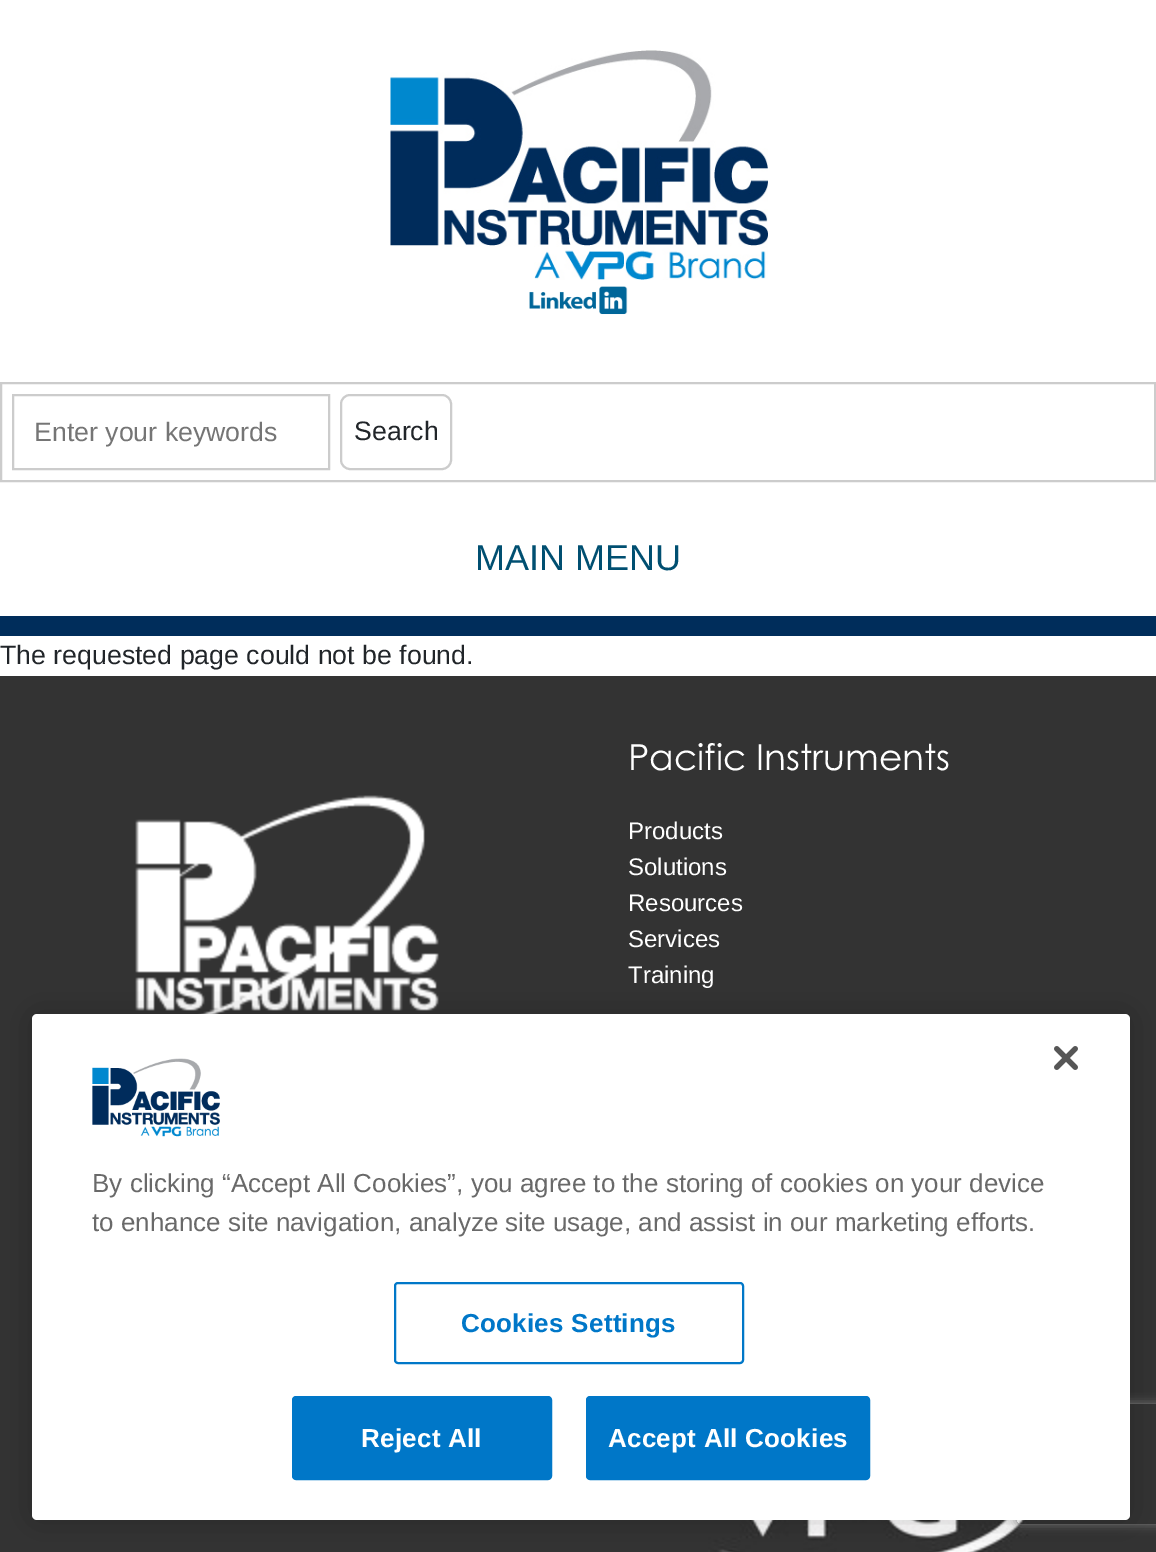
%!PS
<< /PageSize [1156 1552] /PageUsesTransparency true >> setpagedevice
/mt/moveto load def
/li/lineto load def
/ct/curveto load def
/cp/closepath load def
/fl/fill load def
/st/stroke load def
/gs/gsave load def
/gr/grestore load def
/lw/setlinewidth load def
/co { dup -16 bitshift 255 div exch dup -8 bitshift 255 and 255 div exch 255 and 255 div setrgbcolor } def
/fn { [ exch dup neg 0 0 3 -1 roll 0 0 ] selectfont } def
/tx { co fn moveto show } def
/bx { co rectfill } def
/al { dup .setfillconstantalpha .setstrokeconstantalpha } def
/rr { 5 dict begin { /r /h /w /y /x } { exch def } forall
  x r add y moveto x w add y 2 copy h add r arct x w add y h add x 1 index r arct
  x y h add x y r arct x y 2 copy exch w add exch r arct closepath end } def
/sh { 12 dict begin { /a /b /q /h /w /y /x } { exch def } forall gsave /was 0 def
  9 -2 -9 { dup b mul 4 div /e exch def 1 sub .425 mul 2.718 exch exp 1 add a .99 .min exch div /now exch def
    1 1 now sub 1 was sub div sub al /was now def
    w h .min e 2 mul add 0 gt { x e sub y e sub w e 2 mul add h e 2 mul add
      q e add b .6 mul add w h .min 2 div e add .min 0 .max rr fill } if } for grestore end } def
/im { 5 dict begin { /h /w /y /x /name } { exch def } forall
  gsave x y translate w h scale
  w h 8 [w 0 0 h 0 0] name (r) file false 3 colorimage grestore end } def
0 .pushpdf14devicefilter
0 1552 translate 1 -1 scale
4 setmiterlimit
0 0 1156 1552 16#FFFFFF bx
(media/1.raw) 390 50 378 230 im
(media/2.raw) 529 286 99 29 im
16#CCCCCC co
2 lw
1 383 1154 98 rectstroke
13 395 316 74 rectstroke
341 395 110 74 9 rr st
0 616 1156 20 16#002D5B bx
0 676 1156 876 16#333333 bx
(media/3.raw) 135 795 304 219 im
(media/4.raw) 708 1520 322 32 im
16#000000 co
32 1014 1098 506 5 18 .2 sh
gs
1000 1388 mt 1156 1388 li 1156 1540 li 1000 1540 li cp 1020 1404 mt 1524 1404 li 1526 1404 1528 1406 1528 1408 ct 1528 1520 li 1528 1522 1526 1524 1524 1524 ct 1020 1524 li 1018 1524 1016 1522 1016 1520 ct 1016 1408 li 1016 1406 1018 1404 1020 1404 ct cp eoclip newpath
16#808080 co
1016 1404 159 120 4 5 1 sh
gr
16#FFFFFF co
32 1014 1098 506 5 rr fl
(media/5.raw) 1054 1046 24 24 im
(media/6.raw) 92 1058 128 79 im
16#0077C8 co
395 1283 348 80 3 rr st
293 1397 258 82 3 rr gs fl gr
st
587 1397 282 82 3 rr gs fl gr
st
(Enter your keywords) 34 441 /LiberationSans-Regular 26.7 16#757575 tx
(Search) 354 440 /LiberationSans-Regular 26.7 16#212529 tx
(MAIN MENU) 475 570 /LiberationSans-Regular 36 16#004F71 tx
(The requested page could not be found.) 0 664 /LiberationSans-Regular 26.7 16#212529 tx
(Pacific Instruments) 628 770 /CenturyGothic-Regular 36 16#FFFFFF tx
(Products) 628 839 /LiberationSans-Regular 24 16#FFFFFF tx
(Solutions) 628 875 /LiberationSans-Regular 24 16#FFFFFF tx
(Resources) 628 911 /LiberationSans-Regular 24 16#FFFFFF tx
(Services) 628 947 /LiberationSans-Regular 24 16#FFFFFF tx
(Training) 628 983 /LiberationSans-Regular 24 16#FFFFFF tx
(By clicking “Accept All Cookies”, you agree to the storing of cookies on your device) 92 1192 /LiberationSans-Regular 26 16#696969 tx
(to enhance site navigation, analyze site usage, and assist in our marketing efforts.) 92 1231 /LiberationSans-Regular 26 16#696969 tx
/LiberationSans-Bold 26 fn
16#0077C8 co
461 1332 mt .25 0 (Cookies Settings) ashow
16#FFFFFF co
361 1447 mt .25 0 (Reject All) ashow
608 1447 mt .25 0 (Accept All Cookies) ashow
.poppdf14devicefilter showpage
